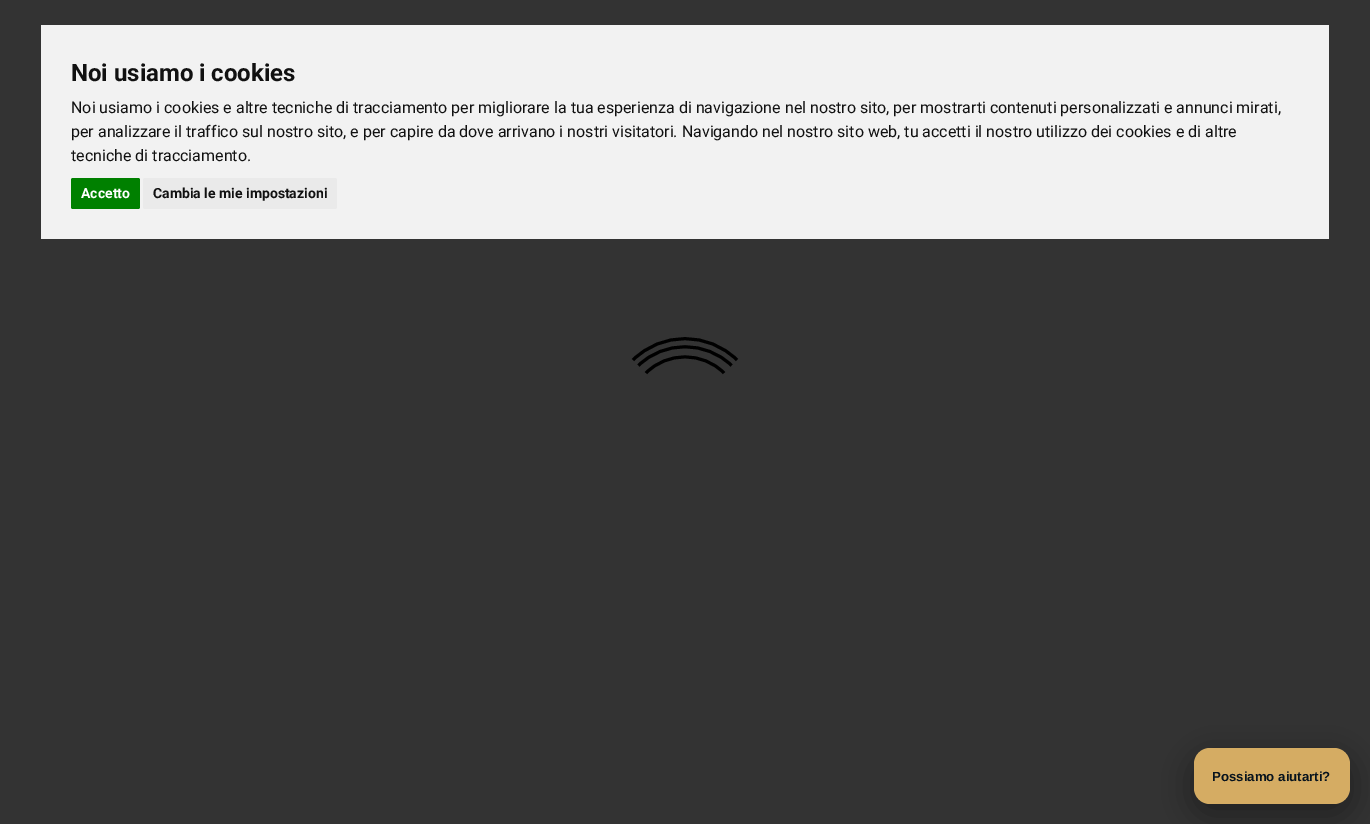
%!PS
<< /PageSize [1370 824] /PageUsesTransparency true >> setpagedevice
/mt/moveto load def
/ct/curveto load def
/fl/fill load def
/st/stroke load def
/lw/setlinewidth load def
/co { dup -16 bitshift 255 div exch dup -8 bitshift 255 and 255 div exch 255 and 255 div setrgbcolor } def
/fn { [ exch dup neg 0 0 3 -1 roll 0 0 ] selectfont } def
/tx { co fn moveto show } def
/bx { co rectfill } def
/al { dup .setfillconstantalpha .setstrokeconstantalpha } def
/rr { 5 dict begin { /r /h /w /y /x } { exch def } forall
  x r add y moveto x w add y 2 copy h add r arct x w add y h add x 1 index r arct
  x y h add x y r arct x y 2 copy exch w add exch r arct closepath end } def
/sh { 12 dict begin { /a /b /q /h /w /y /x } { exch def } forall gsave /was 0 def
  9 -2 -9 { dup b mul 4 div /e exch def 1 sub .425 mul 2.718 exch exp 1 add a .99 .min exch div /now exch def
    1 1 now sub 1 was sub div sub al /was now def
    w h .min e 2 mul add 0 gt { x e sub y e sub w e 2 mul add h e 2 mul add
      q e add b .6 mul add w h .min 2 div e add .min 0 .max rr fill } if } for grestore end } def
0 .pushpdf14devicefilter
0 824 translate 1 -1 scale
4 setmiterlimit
0 0 1370 824 16#333333 bx
41 25 1288 214 16#F2F2F2 bx
16#008000 co
71 178 69 31 2 rr fl
16#EAEAEA co
143 178 194 31 2 rr fl
16#000000 co
3 lw
633 360 mt 661.5 331.5 708.5 331.5 737 360 ct st
638.5 365.5 mt 664 340.5 706 340.5 731.5 365.5 ct st
646 373 mt 667 351.5 703 351.5 724 373 ct st
1194 758 156 56 16 15 .35 sh
16#D5AC63 co
1194 748 156 56 16 rr fl
(Noi usiamo i cookies) 71 81 /Roboto-Bold 24 16#111111 tx
(Noi usiamo i cookies e altre tecniche di tracciamento per migliorare la tua esperienza di navigazione nel nostro sito, per mostrarti contenuti personalizzati e annunci mirati,) 71 113 /Roboto-Regular 16 16#111111 tx
(per analizzare il traffico sul nostro sito, e per capire da dove arrivano i nostri visitatori. Navigando nel nostro sito web, tu accetti il nostro utilizzo dei cookies e di altre) 71 137 /Roboto-Regular 16 16#111111 tx
(tecniche di tracciamento.) 71 161 /Roboto-Regular 16 16#111111 tx
(Accetto) 81 198 /Roboto-Bold 14 16#FFFFFF tx
(Cambia le mie impostazioni) 153 198 /Roboto-Bold 14 16#111111 tx
(Possiamo aiutarti?) 1212 781 /LiberationSans-Bold 13.25 16#07131D tx
.poppdf14devicefilter showpage
